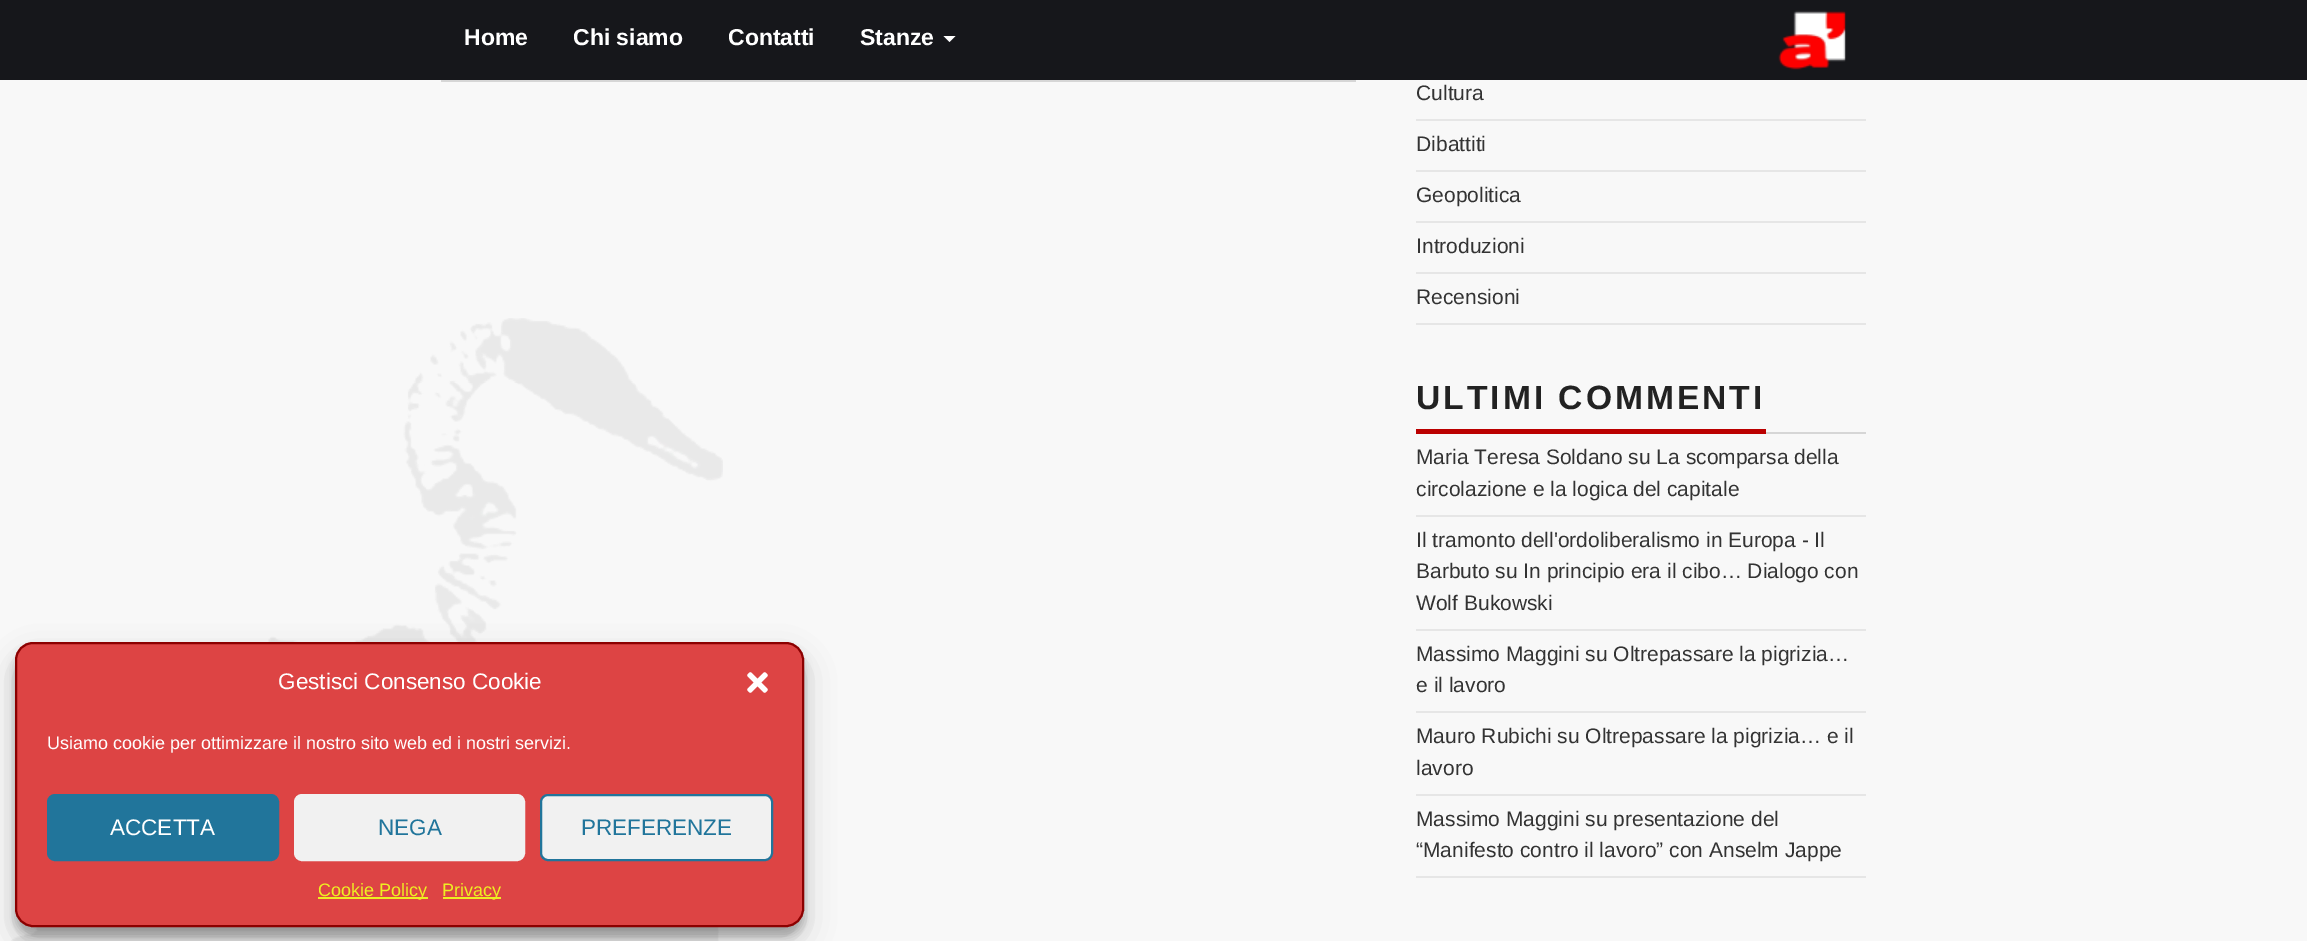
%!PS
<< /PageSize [2307 941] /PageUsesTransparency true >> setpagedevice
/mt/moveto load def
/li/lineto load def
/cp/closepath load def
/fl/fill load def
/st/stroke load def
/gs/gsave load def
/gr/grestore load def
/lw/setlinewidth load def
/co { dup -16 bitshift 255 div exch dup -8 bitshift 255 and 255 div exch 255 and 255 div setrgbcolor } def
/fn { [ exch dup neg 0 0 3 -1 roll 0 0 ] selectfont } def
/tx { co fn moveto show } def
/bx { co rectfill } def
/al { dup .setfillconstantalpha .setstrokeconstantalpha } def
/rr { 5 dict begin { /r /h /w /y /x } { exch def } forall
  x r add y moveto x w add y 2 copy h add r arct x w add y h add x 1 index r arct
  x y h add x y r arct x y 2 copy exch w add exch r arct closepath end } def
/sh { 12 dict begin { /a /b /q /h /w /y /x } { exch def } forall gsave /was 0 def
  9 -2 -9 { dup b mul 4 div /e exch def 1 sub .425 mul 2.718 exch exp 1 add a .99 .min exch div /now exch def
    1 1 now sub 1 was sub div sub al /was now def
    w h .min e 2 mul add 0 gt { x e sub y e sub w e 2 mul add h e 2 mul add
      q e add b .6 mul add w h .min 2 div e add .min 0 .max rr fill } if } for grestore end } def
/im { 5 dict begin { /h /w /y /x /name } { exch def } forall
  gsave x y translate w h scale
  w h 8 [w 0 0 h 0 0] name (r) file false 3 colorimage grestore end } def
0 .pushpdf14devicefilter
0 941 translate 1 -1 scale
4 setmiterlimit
0 0 2307 941 16#F8F8F8 bx
(media/1.raw) 11 318 712 623 im
0 0 2307 80 16#16171B bx
16#FFFFFF co
943.5 36 mt 955.5 36 li 949.5 42 li cp fl
(media/2.raw) 1778 10 68 60 im
16#000000 co
15 651 789 285 18 4.5 .23 sh
15 657 789 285 18 15 .19 sh
16#DD4444 co
16 643 787 283 17 rr gs fl gr
16#8C0000 co
2 lw
st
(media/3.raw) 747 672 21 21 im
16#21759B co
48 795 230 65 7 rr gs fl gr
st
16#F1F1F1 co
295 795 229 65 7 rr gs fl gr
st
541 795 231 65 7 rr gs fl gr
16#21759B co
st
318 897 110 2 16#EEEE22 bx
443 897 58 2 16#EEEE22 bx
441 80 915 2 16#D6D6D6 bx
1416 119 450 2 16#E6E6E6 bx
1416 170 450 2 16#E6E6E6 bx
1416 221 450 2 16#E6E6E6 bx
1416 272 450 2 16#E6E6E6 bx
1416 323 450 2 16#E6E6E6 bx
1766 432 100 2 16#D6D6D6 bx
1416 429 350 5 16#BB0000 bx
1416 515 450 2 16#E6E6E6 bx
1416 629 450 2 16#E6E6E6 bx
1416 711 450 2 16#E6E6E6 bx
1416 794 450 2 16#E6E6E6 bx
1416 876 450 2 16#E6E6E6 bx
(Home) 464 45 /LiberationSans-Bold 23 16#FFFFFF tx
(Chi siamo) 573 45 /LiberationSans-Bold 23 16#FFFFFF tx
(Contatti) 728 45 /LiberationSans-Bold 23 16#FFFFFF tx
(Stanze) 860 45 /LiberationSans-Bold 23 16#FFFFFF tx
(Gestisci Consenso Cookie) 278 689 /LiberationSans-Regular 22.5 16#FFFFFF tx
(Usiamo cookie per ottimizzare il nostro sito web ed i nostri servizi.) 47 749 /LiberationSans-Regular 18 16#FFFFFF tx
(ACCETTA) 110 835 /LiberationSans-Regular 22.5 16#FFFFFF tx
(NEGA) 378 835 /LiberationSans-Regular 22.5 16#21759B tx
(PREFERENZE) 581 835 /LiberationSans-Regular 22.5 16#21759B tx
(Cookie Policy) 318 896 /LiberationSans-Regular 18 16#EEEE22 tx
(Privacy) 442 896 /LiberationSans-Regular 18 16#EEEE22 tx
(Cultura) 1416 100 /LiberationSans-Regular 21 16#333333 tx
(Dibattiti) 1416 151 /LiberationSans-Regular 21 16#333333 tx
(Geopolitica) 1416 202 /LiberationSans-Regular 21 16#333333 tx
(Introduzioni) 1416 253 /LiberationSans-Regular 21 16#333333 tx
(Recensioni) 1416 304 /LiberationSans-Regular 21 16#333333 tx
/LiberationSans-Bold 33.6 fn
16#222222 co
1416 409 mt 3 0 (ULTIMI COMMENTI) ashow
(Maria Teresa Soldano su La scomparsa della) 1416 464 /LiberationSans-Regular 21 16#333333 tx
(circolazione e la logica del capitale) 1416 496 /LiberationSans-Regular 21 16#333333 tx
(Il tramonto dell'ordoliberalismo in Europa - Il) 1416 547 /LiberationSans-Regular 21 16#333333 tx
(Barbuto su In principio era il cibo… Dialogo con) 1416 578 /LiberationSans-Regular 21 16#333333 tx
(Wolf Bukowski) 1416 610 /LiberationSans-Regular 21 16#333333 tx
(Massimo Maggini su Oltrepassare la pigrizia…) 1416 661 /LiberationSans-Regular 21 16#333333 tx
(e il lavoro) 1416 692 /LiberationSans-Regular 21 16#333333 tx
(Mauro Rubichi su Oltrepassare la pigrizia… e il) 1416 743 /LiberationSans-Regular 21 16#333333 tx
(lavoro) 1416 775 /LiberationSans-Regular 21 16#333333 tx
(Massimo Maggini su presentazione del) 1416 826 /LiberationSans-Regular 21 16#333333 tx
(“Manifesto contro il lavoro” con Anselm Jappe) 1416 857 /LiberationSans-Regular 21 16#333333 tx
.poppdf14devicefilter showpage
